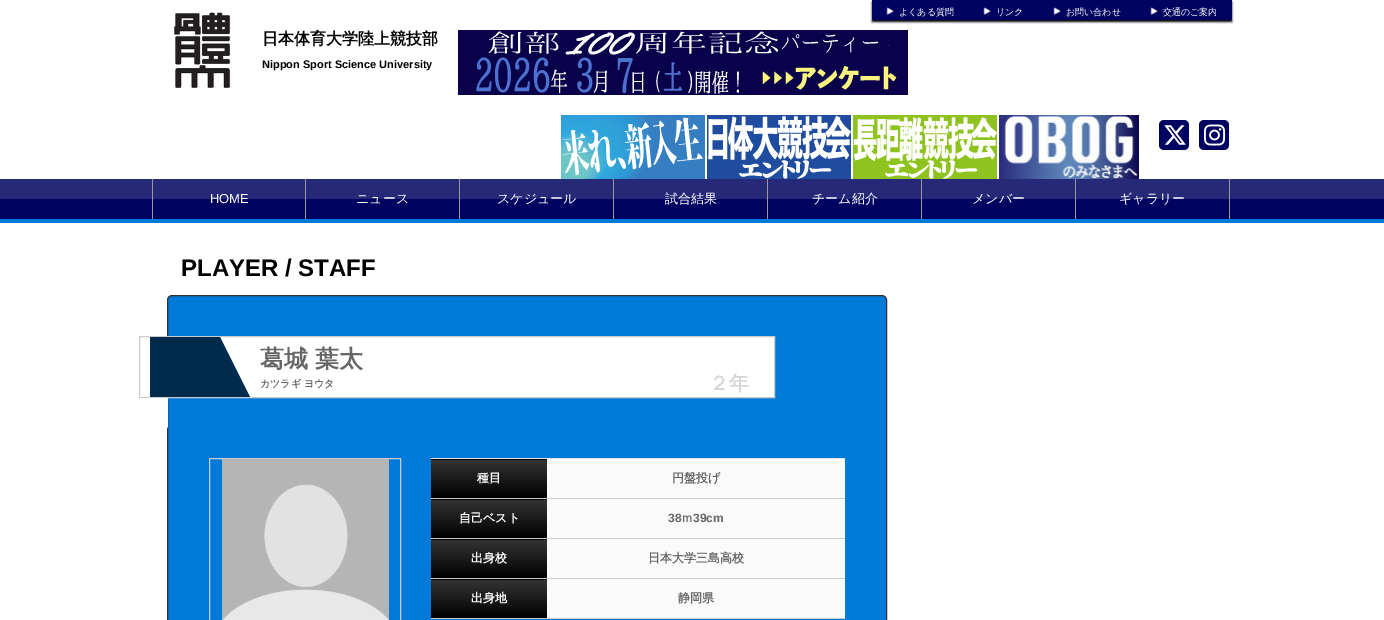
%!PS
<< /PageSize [1384 620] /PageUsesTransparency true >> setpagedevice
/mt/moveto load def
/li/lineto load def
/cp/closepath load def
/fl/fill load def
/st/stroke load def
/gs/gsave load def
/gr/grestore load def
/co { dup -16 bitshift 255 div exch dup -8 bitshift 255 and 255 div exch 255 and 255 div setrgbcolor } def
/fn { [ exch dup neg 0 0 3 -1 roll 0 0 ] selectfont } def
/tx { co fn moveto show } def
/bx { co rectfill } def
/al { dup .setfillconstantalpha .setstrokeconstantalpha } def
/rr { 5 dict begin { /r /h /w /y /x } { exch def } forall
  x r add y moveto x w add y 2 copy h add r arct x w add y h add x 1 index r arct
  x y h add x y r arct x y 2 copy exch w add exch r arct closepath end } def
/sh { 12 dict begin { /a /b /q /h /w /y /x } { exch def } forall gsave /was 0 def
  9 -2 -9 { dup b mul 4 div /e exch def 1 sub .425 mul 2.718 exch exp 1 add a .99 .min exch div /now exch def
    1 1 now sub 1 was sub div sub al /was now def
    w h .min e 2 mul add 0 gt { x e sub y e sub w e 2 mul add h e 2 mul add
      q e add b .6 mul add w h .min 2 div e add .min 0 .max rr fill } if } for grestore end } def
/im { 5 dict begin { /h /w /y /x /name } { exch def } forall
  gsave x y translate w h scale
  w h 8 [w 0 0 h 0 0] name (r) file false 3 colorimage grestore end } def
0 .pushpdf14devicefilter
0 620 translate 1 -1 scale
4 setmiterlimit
0 0 1384 620 16#FFFFFF bx
16#000000 co
872 2 360 20 0 1 1 sh
872 0 360 20 16#000360 bx
(media/1.raw) 886 7 8 8 im
(media/1.raw) 983 7 8 8 im
(media/1.raw) 1053 7 8 8 im
(media/1.raw) 1150 7 8 8 im
(media/2.raw) 173 11 58 78 im
(media/3.raw) 458 30 450 65 im
(media/4.raw) 561 115 144 64 im
(media/5.raw) 707 115 144 64 im
(media/6.raw) 853 115 144 64 im
(media/7.raw) 999 115 140 64 im
1159 120 30 30 5 rr fl
(media/8.raw) 1164 125 22 20 im
1199 120 30 30 5 rr fl
(media/9.raw) 1204 124 21 22 im
0 199 1384 20 16#000360 bx
0 179 1384 20 16#262978 bx
305 179 1 40 16#999999 bx
152 179 1 40 16#999999 bx
459 179 1 40 16#999999 bx
613 179 1 40 16#999999 bx
767 179 1 40 16#999999 bx
921 179 1 40 16#999999 bx
1075 179 1 40 16#999999 bx
1229 179 1 40 16#999999 bx
0 219 1384 4 16#007AD9 bx
167.5 295.5 719 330 4.5 rr gs fl gr
16#333333 co
st
167 337 607 60 16#FFFFFF bx
16#CCCCCC co
139.5 336.5 635 61 rectstroke
150 337 70 60 16#002B4C bx
250 397 mt 220 397 li 220 337 li cp fl
16#FFFFFF co
138 398 mt 168 398 li 168 428 li cp fl
16#CCCCCC co
209.5 458.5 191 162 rectstroke
(media/10.raw) 222 459 167 161 im
gs 431 459 mt 547 459 li 547 460 li 431 460 li cp clip newpath
<< /ShadingType 2 /ColorSpace /DeviceRGB /Coords [431 422 431 460] /Extend [true true] /Function << /FunctionType 2 /Domain [0 1] /C0 [.204 .204 .204] /C1 [0 0 0] /N 1 >> >> shfill gr
gs 431 460 mt 547 460 li 547 498 li 431 498 li cp clip newpath
<< /ShadingType 2 /ColorSpace /DeviceRGB /Coords [431 460 431 498] /Extend [true true] /Function << /FunctionType 2 /Domain [0 1] /C0 [.204 .204 .204] /C1 [0 0 0] /N 1 >> >> shfill gr
547 459 298 39 16#FAFAFA bx
431 458 414 1 16#E3E3E3 bx
431 498 414 1 16#CCCCCC bx
gs 431 499 mt 547 499 li 547 500 li 431 500 li cp clip newpath
<< /ShadingType 2 /ColorSpace /DeviceRGB /Coords [431 462 431 500] /Extend [true true] /Function << /FunctionType 2 /Domain [0 1] /C0 [.204 .204 .204] /C1 [0 0 0] /N 1 >> >> shfill gr
gs 431 500 mt 547 500 li 547 538 li 431 538 li cp clip newpath
<< /ShadingType 2 /ColorSpace /DeviceRGB /Coords [431 500 431 538] /Extend [true true] /Function << /FunctionType 2 /Domain [0 1] /C0 [.204 .204 .204] /C1 [0 0 0] /N 1 >> >> shfill gr
547 499 298 39 16#FAFAFA bx
431 538 414 1 16#CCCCCC bx
gs 431 539 mt 547 539 li 547 540 li 431 540 li cp clip newpath
<< /ShadingType 2 /ColorSpace /DeviceRGB /Coords [431 502 431 540] /Extend [true true] /Function << /FunctionType 2 /Domain [0 1] /C0 [.204 .204 .204] /C1 [0 0 0] /N 1 >> >> shfill gr
gs 431 540 mt 547 540 li 547 578 li 431 578 li cp clip newpath
<< /ShadingType 2 /ColorSpace /DeviceRGB /Coords [431 540 431 578] /Extend [true true] /Function << /FunctionType 2 /Domain [0 1] /C0 [.204 .204 .204] /C1 [0 0 0] /N 1 >> >> shfill gr
547 539 298 39 16#FAFAFA bx
431 578 414 1 16#CCCCCC bx
gs 431 579 mt 547 579 li 547 580 li 431 580 li cp clip newpath
<< /ShadingType 2 /ColorSpace /DeviceRGB /Coords [431 542 431 580] /Extend [true true] /Function << /FunctionType 2 /Domain [0 1] /C0 [.204 .204 .204] /C1 [0 0 0] /N 1 >> >> shfill gr
gs 431 580 mt 547 580 li 547 618 li 431 618 li cp clip newpath
<< /ShadingType 2 /ColorSpace /DeviceRGB /Coords [431 580 431 618] /Extend [true true] /Function << /FunctionType 2 /Domain [0 1] /C0 [.204 .204 .204] /C1 [0 0 0] /N 1 >> >> shfill gr
547 579 298 39 16#FAFAFA bx
431 618 414 1 16#CCCCCC bx
(よくある質問) 899 15 /WenQuanYiZenHei-Medium 9 16#FFFFFF tx
(リンク) 996 15 /WenQuanYiZenHei-Medium 9 16#FFFFFF tx
(お問い合わせ) 1066 15 /WenQuanYiZenHei-Medium 9 16#FFFFFF tx
(交通のご案内) 1163 15 /WenQuanYiZenHei-Medium 9 16#FFFFFF tx
(日本体育大学陸上競技部) 262 44 /WenQuanYiZenHei-Bold 16 16#000000 tx
(Nippon Sport Science University) 262 68 /LiberationSans-Bold 11 16#000000 tx
(HOME) 210 203 /LiberationSans-Regular 13 16#FFFFFF tx
(ニュース) 356 203 /WenQuanYiZenHei-Medium 13 16#FFFFFF tx
(スケジュール) 497 203 /WenQuanYiZenHei-Medium 13 16#FFFFFF tx
(試合結果) 665 203 /WenQuanYiZenHei-Medium 13 16#FFFFFF tx
(チーム紹介) 812 203 /WenQuanYiZenHei-Medium 13 16#FFFFFF tx
(メンバー) 972 203 /WenQuanYiZenHei-Medium 13 16#FFFFFF tx
(ギャラリー) 1119 203 /WenQuanYiZenHei-Medium 13 16#FFFFFF tx
(PLAYER / STAFF) 181 276 /LiberationSans-Bold 24 16#000000 tx
(葛城) 260 367 /WenQuanYiZenHei-Bold 24 16#666666 tx
(葉太) 315 367 /WenQuanYiZenHei-Bold 24 16#666666 tx
(カツラギ ヨウタ) 260 387 /WenQuanYiZenHei-Bold 10 16#666666 tx
(２年) 709 390 /WenQuanYiZenHei-Bold 20 16#D6D6D6 tx
(種目) 477 482 /WenQuanYiZenHei-Bold 12 16#FFFFFF tx
(円盤投げ) 672 482 /WenQuanYiZenHei-Bold 12 16#666666 tx
(自己ベスト) 459 522 /WenQuanYiZenHei-Bold 12 16#FFFFFF tx
(38) 668 522 /LiberationSans-Bold 12 16#666666 tx
(ｍ) 681 522 /WenQuanYiZenHei-Bold 12 16#666666 tx
(39cm) 693 522 /LiberationSans-Bold 12 16#666666 tx
(出身校) 471 562 /WenQuanYiZenHei-Bold 12 16#FFFFFF tx
(日本大学三島高校) 648 562 /WenQuanYiZenHei-Bold 12 16#666666 tx
(出身地) 471 602 /WenQuanYiZenHei-Bold 12 16#FFFFFF tx
(静岡県) 678 602 /WenQuanYiZenHei-Bold 12 16#666666 tx
.poppdf14devicefilter showpage
